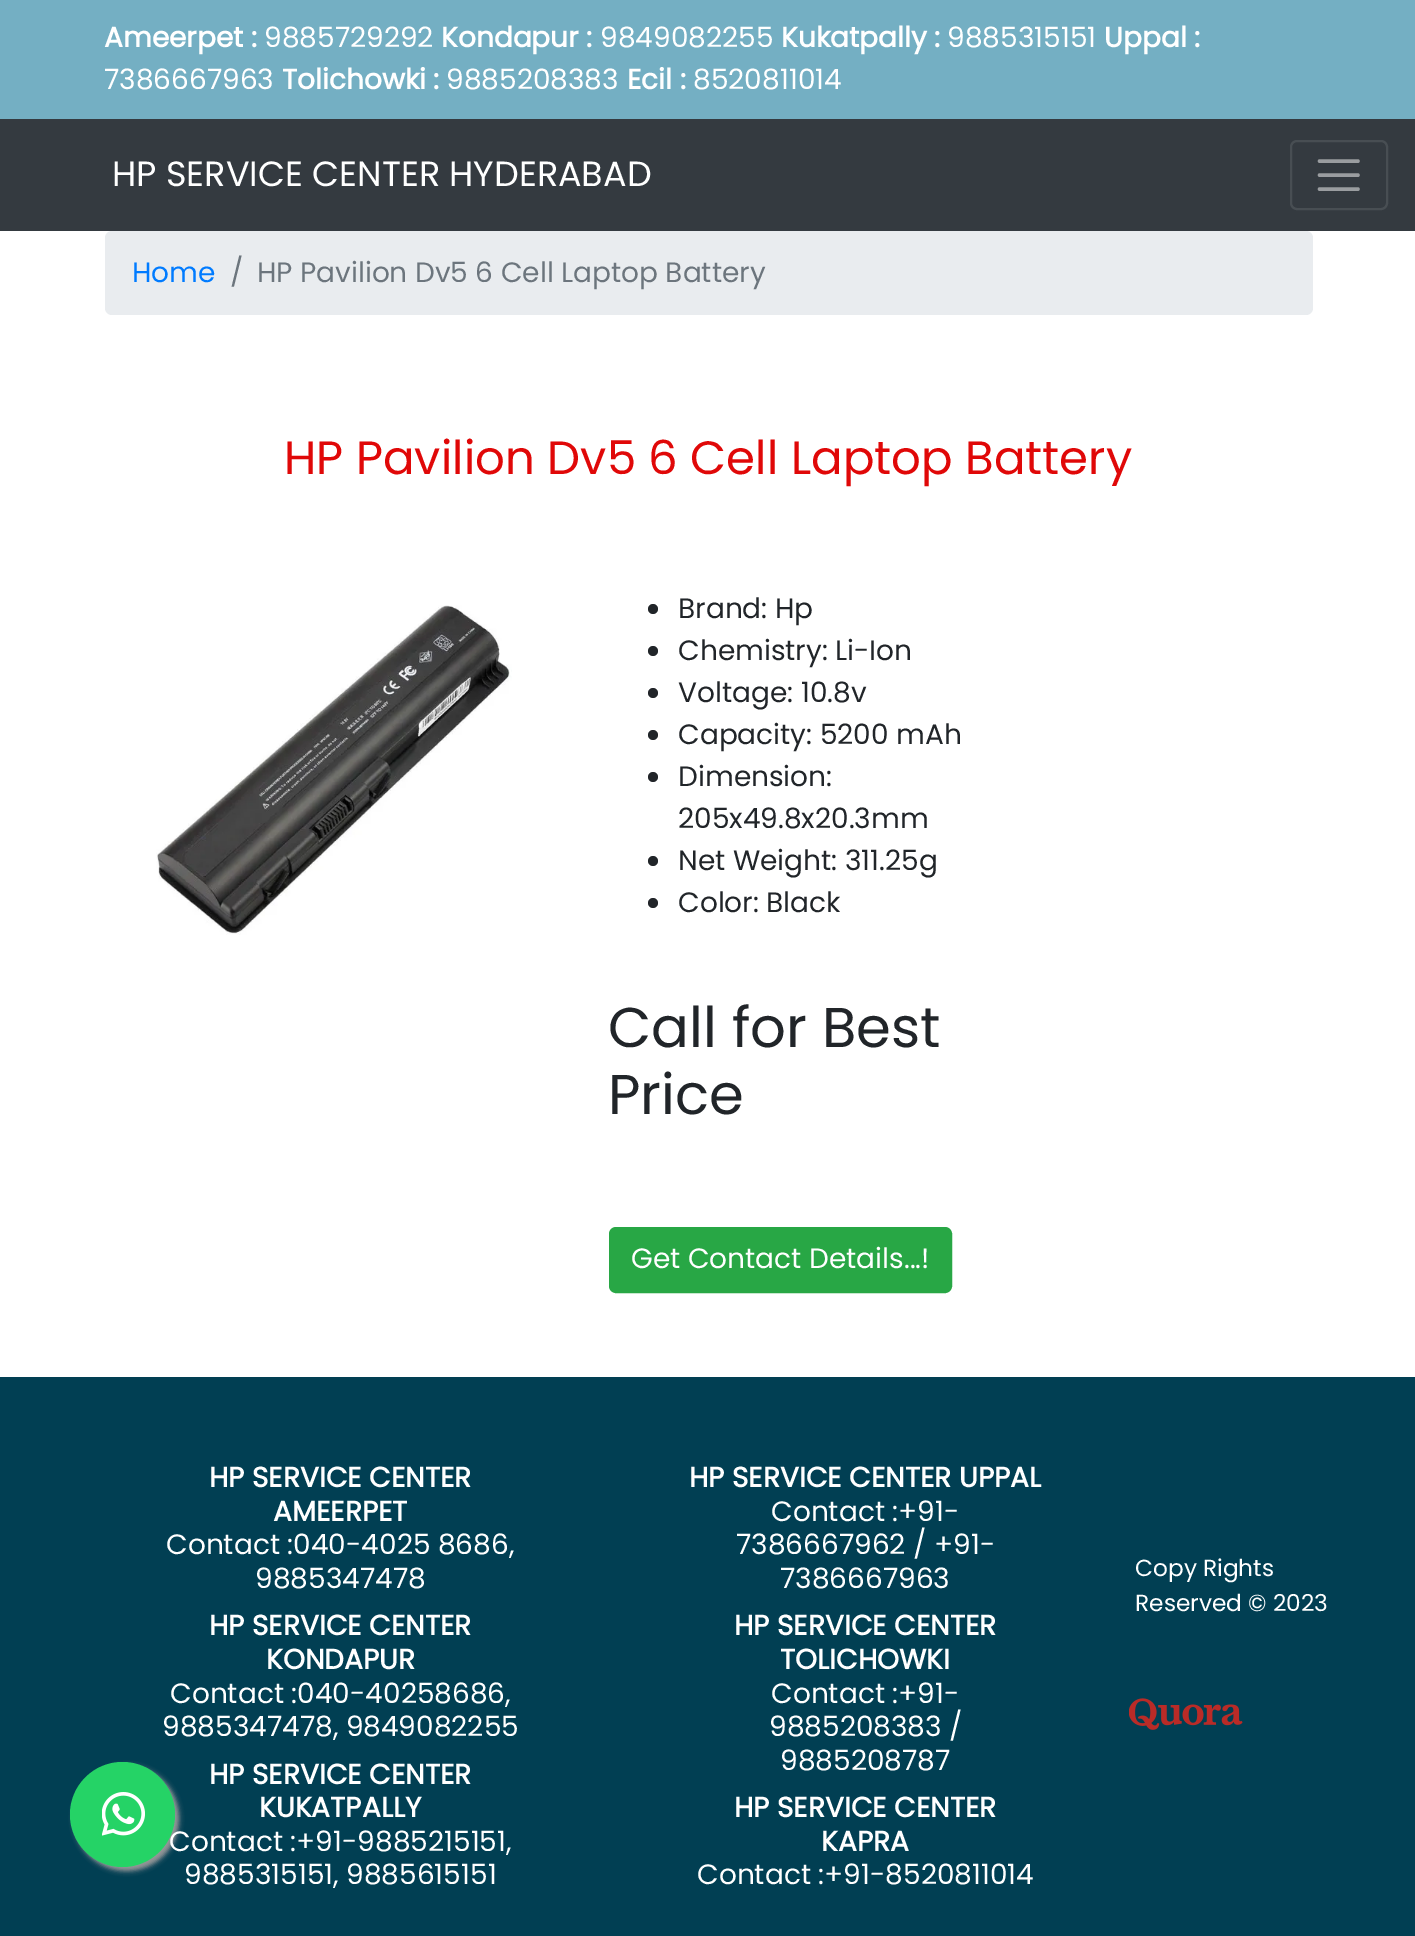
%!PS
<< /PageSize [1415 1936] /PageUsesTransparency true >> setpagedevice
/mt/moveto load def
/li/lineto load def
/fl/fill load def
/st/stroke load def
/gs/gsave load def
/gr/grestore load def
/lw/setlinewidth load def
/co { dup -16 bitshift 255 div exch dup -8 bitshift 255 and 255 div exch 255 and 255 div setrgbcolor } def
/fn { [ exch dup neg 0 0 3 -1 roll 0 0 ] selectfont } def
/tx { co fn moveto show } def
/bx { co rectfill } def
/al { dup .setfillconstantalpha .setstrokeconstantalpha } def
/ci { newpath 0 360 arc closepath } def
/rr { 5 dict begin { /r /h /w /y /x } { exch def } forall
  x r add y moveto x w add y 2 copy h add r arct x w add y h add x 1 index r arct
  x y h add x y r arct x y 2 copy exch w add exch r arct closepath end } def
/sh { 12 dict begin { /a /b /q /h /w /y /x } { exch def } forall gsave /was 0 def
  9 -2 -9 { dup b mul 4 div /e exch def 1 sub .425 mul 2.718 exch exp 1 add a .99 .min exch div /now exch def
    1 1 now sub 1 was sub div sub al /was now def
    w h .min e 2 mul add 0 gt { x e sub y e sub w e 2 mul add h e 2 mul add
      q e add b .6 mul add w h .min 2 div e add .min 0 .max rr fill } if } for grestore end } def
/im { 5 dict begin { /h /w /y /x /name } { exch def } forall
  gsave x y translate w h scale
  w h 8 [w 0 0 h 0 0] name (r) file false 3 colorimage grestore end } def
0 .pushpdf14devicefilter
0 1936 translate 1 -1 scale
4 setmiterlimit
0 0 1415 1936 16#FFFFFF bx
0 0 1415 119 16#74AFC3 bx
0 119 1415 112 16#343A40 bx
16#484E53 co
2 lw
1291 141 96 68 6 rr st
16#9A9DA0 co
3.5 lw
1 setlinecap
1319.5 161 mt 1358 161 li 1319.5 175 mt 1358 175 li 1319.5 189 mt 1358 189 li st
16#E9ECEF co
105 231 1208 84 7 rr fl
(media/1.raw) 156 605 356 330 im
16#212529 co
653 609 5 ci fl
653 651 5 ci fl
653 693 5 ci fl
653 735 5 ci fl
653 777 5 ci fl
653 861 5 ci fl
653 903 5 ci fl
16#28A745 co
610 1228 341 64 6 rr gs fl gr
2 lw
0 setlinecap
st
0 1377 1415 559 16#013F53 bx
16#999999 co
74 1766 105 105 52.5 2.5 1 sh
(media/3.raw) 1129 1698 114 32 im
(Ameerpet :) 104 47 /Poppins-Bold 28 16#FFFFFF tx
(9885729292) 264 47 /Poppins-Regular 28 16#FFFFFF tx
(Kondapur :) 441 47 /Poppins-Bold 28 16#FFFFFF tx
(9849082255) 600 47 /Poppins-Regular 28 16#FFFFFF tx
(Kukatpally :) 781 47 /Poppins-Bold 28 16#FFFFFF tx
(9885315151) 947 47 /Poppins-Regular 28 16#FFFFFF tx
(Uppal :) 1104 47 /Poppins-Bold 28 16#FFFFFF tx
(7386667963) 104 89 /Poppins-Regular 28 16#FFFFFF tx
(Tolichowki :) 282 89 /Poppins-Bold 28 16#FFFFFF tx
(9885208383) 446 89 /Poppins-Regular 28 16#FFFFFF tx
(Ecil :) 627 89 /Poppins-Bold 28 16#FFFFFF tx
(8520811014) 693 89 /Poppins-Regular 28 16#FFFFFF tx
(HP SERVICE CENTER HYDERABAD) 112 186 /Poppins-Regular 35 16#FFFFFF tx
(Home) 132 282 /Poppins-Regular 28 16#007BFF tx
(/) 230 282 /Poppins-Regular 28 16#6C757D tx
(HP Pavilion Dv5 6 Cell Laptop Battery) 257 282 /Poppins-Regular 28 16#6C757D tx
(HP Pavilion Dv5 6 Cell Laptop Battery) 284 474 /Poppins-Regular 46.7 16#E00808 tx
(Brand: Hp) 678 618 /Poppins-Regular 28 16#212529 tx
(Chemistry: Li-Ion) 678 660 /Poppins-Regular 28 16#212529 tx
(Voltage: 10.8v) 678 702 /Poppins-Regular 28 16#212529 tx
(Capacity: 5200 mAh) 678 744 /Poppins-Regular 28 16#212529 tx
(Dimension:) 678 786 /Poppins-Regular 28 16#212529 tx
(205x49.8x20.3mm) 678 828 /Poppins-Regular 28 16#212529 tx
(Net Weight: 311.25g) 678 870 /Poppins-Regular 28 16#212529 tx
(Color: Black) 678 912 /Poppins-Regular 28 16#212529 tx
(Call for Best) 608 1047 /Poppins-Regular 56 16#212529 tx
(Price) 608 1114 /Poppins-Regular 56 16#212529 tx
(Get Contact Details...!) 631 1268 /Poppins-Regular 28 16#FFFFFF tx
(HP SERVICE CENTER) 209 1487 /Poppins-Bold 28 16#FFFFFF tx
(AMEERPET) 273 1521 /Poppins-Bold 28 16#FFFFFF tx
(Contact :040-4025 8686,) 166 1554 /Poppins-Regular 28 16#FFFFFF tx
(9885347478) 255 1588 /Poppins-Regular 28 16#FFFFFF tx
(HP SERVICE CENTER) 209 1635 /Poppins-Bold 28 16#FFFFFF tx
(KONDAPUR) 266 1669 /Poppins-Bold 28 16#FFFFFF tx
(Contact :040-40258686,) 170 1703 /Poppins-Regular 28 16#FFFFFF tx
(9885347478, 9849082255) 162 1736 /Poppins-Regular 28 16#FFFFFF tx
(HP SERVICE CENTER) 209 1784 /Poppins-Bold 28 16#FFFFFF tx
(KUKATPALLY) 259 1817 /Poppins-Bold 28 16#FFFFFF tx
(Contact :+91-9885215151,) 169 1851 /Poppins-Regular 28 16#FFFFFF tx
16#25D366 co
122.5 1814.5 52.5 ci fl
(media/2.raw) 102 1792 43 44 im
(9885315151, 9885615151) 184 1884 /Poppins-Regular 28 16#FFFFFF tx
(HP SERVICE CENTER UPPAL) 689 1487 /Poppins-Bold 28 16#FFFFFF tx
(Contact :+91-) 771 1521 /Poppins-Regular 28 16#FFFFFF tx
(7386667962 / +91-) 736 1554 /Poppins-Regular 28 16#FFFFFF tx
(7386667963) 780 1588 /Poppins-Regular 28 16#FFFFFF tx
(HP SERVICE CENTER) 734 1635 /Poppins-Bold 28 16#FFFFFF tx
(TOLICHOWKI) 780 1669 /Poppins-Bold 28 16#FFFFFF tx
(Contact :+91-) 771 1703 /Poppins-Regular 28 16#FFFFFF tx
(9885208383 /) 769 1736 /Poppins-Regular 28 16#FFFFFF tx
(9885208787) 780 1770 /Poppins-Regular 28 16#FFFFFF tx
(HP SERVICE CENTER) 734 1817 /Poppins-Bold 28 16#FFFFFF tx
(KAPRA) 821 1851 /Poppins-Bold 28 16#FFFFFF tx
(Contact :+91-8520811014) 697 1884 /Poppins-Regular 28 16#FFFFFF tx
(Copy Rights) 1135 1576 /Poppins-Regular 23.25 16#FFFFFF tx
(Reserved © 2023) 1135 1611 /Poppins-Regular 23.25 16#FFFFFF tx
.poppdf14devicefilter showpage
